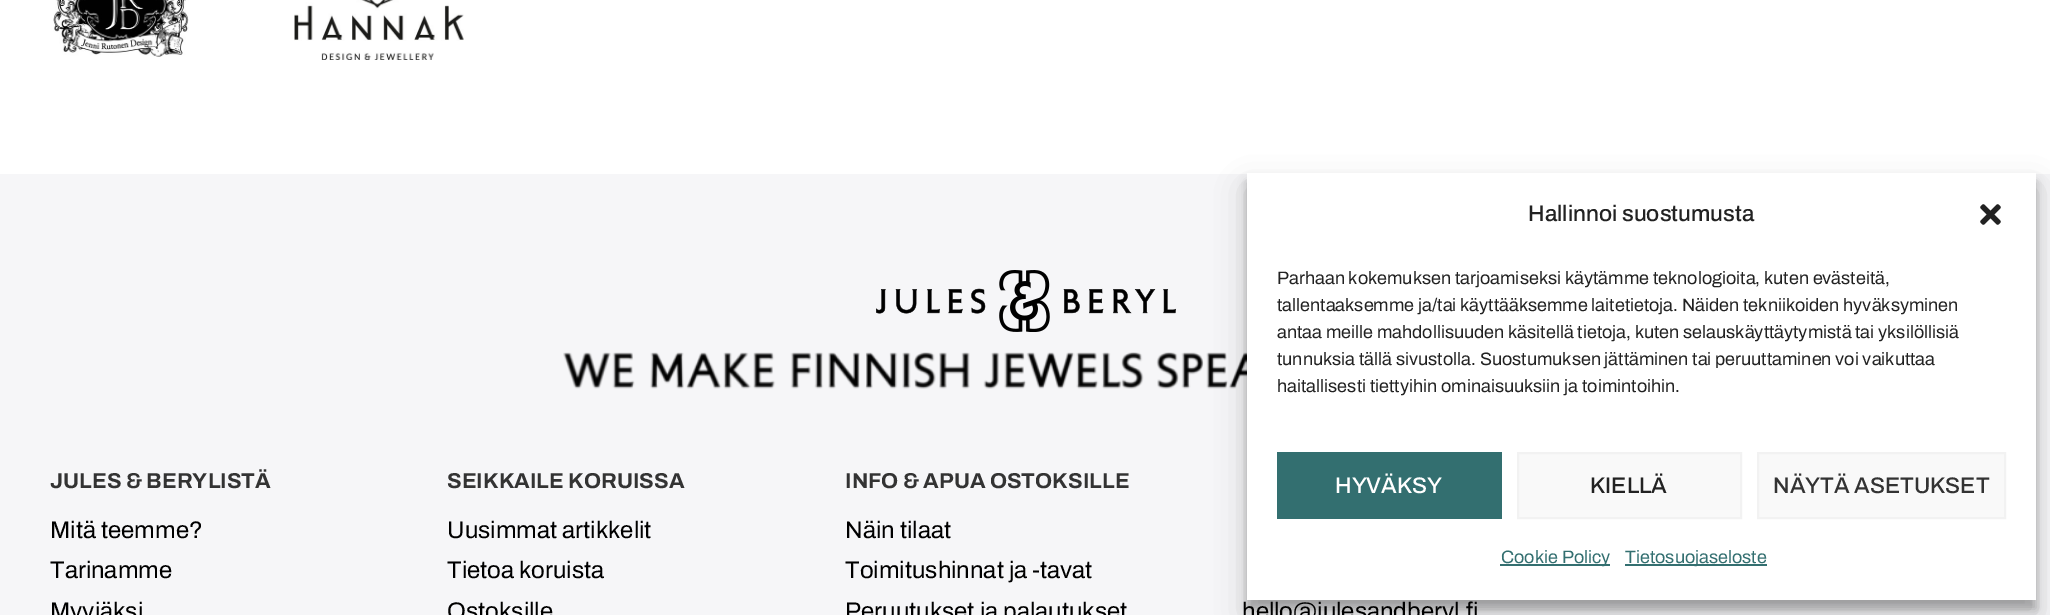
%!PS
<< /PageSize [2050 615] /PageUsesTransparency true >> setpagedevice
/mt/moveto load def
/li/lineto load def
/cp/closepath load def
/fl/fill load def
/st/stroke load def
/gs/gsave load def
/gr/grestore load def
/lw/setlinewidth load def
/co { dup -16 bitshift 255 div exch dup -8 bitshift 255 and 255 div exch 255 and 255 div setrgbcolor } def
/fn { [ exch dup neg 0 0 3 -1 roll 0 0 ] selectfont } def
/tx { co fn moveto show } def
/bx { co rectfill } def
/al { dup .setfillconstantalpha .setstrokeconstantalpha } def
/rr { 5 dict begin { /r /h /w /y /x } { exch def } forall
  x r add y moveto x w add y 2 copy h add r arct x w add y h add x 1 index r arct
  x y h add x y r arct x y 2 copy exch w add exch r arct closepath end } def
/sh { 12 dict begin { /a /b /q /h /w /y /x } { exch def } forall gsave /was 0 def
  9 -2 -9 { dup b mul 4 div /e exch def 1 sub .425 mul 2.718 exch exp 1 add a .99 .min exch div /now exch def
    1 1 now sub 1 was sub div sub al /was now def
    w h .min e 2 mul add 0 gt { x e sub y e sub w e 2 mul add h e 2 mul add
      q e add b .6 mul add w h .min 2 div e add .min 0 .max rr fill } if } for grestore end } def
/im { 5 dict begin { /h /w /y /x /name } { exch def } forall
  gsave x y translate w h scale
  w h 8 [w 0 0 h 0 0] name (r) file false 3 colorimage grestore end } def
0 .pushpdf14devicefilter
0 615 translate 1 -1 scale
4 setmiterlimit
0 0 2050 615 16#FFFFFF bx
(media/1.raw) 53 0 136 57 im
(media/2.raw) 294 0 170 60 im
0 174 2050 441 16#F6F6F8 bx
(media/3.raw) 876 270 300 62 im
(media/4.raw) 563 352 684 37 im
16#000000 co
1247 182 789 427 0 4.5 .23 sh
1247 188 789 427 0 15 .19 sh
1247 173 789 427 16#FFFFFF bx
(media/5.raw) 1980 204 21 21 im
1277 452 225 67 16#336F70 bx
16#F9F9F9 co
1518 453 mt 1741 453 li 1741 518 li 1518 518 li cp gs fl gr
16#F2F2F2 co
2 lw
st
16#F9F9F9 co
1758 453 mt 2005 453 li 2005 518 li 1758 518 li cp gs fl gr
16#F2F2F2 co
st
1500 564 110 2 16#336F70 bx
1625 564 142 2 16#336F70 bx
(JULES & BERYLISTÄ) 50 488 /Archivo-Bold 21.6 16#333333 tx
(Mitä teemme?) 50 538 /Archivo-Regular 24 16#000000 tx
(Tarinamme) 50 578 /Archivo-Regular 24 16#000000 tx
(Myyjäksi) 50 619 /Archivo-Regular 24 16#000000 tx
(SEIKKAILE KORUISSA) 447 488 /Archivo-Bold 21.6 16#333333 tx
(Uusimmat artikkelit) 447 538 /Archivo-Regular 24 16#000000 tx
(Tietoa koruista) 447 578 /Archivo-Regular 24 16#000000 tx
(Ostoksille) 447 619 /Archivo-Regular 24 16#000000 tx
(INFO & APUA OSTOKSILLE) 845 488 /Archivo-Bold 21.6 16#333333 tx
(Näin tilaat) 845 538 /Archivo-Regular 24 16#000000 tx
(Toimitushinnat ja -tavat) 845 578 /Archivo-Regular 24 16#000000 tx
(Peruutukset ja palautukset) 845 619 /Archivo-Regular 24 16#000000 tx
(hello@julesandberyl.fi) 1242 619 /Archivo-Regular 24 16#000000 tx
(Hallinnoi suostumusta) 1528 221 /Archivo-Medium 22.5 16#222222 tx
(Parhaan kokemuksen tarjoamiseksi käytämme teknologioita, kuten evästeitä,) 1277 284 /Archivo-Regular 18 16#222222 tx
(tallentaaksemme ja/tai käyttääksemme laitetietoja. Näiden tekniikoiden hyväksyminen) 1277 311 /Archivo-Regular 18 16#222222 tx
(antaa meille mahdollisuuden käsitellä tietoja, kuten selauskäyttäytymistä tai yksilöllisiä) 1277 338 /Archivo-Regular 18 16#222222 tx
(tunnuksia tällä sivustolla. Suostumuksen jättäminen tai peruuttaminen voi vaikuttaa) 1277 365 /Archivo-Regular 18 16#222222 tx
(haitallisesti tiettyihin ominaisuuksiin ja toimintoihin.) 1277 392 /Archivo-Regular 18 16#222222 tx
(HYVÄKSY) 1335 493 /Archivo-Medium 22.5 16#FFFFFF tx
(KIELLÄ) 1590 493 /Archivo-Medium 22.5 16#222222 tx
(NÄYTÄ ASETUKSET) 1773 493 /Archivo-Medium 22.5 16#333333 tx
(Cookie Policy) 1501 563 /Archivo-Regular 18 16#336F70 tx
(Tietosuojaseloste) 1625 563 /Archivo-Regular 18 16#336F70 tx
.poppdf14devicefilter showpage
